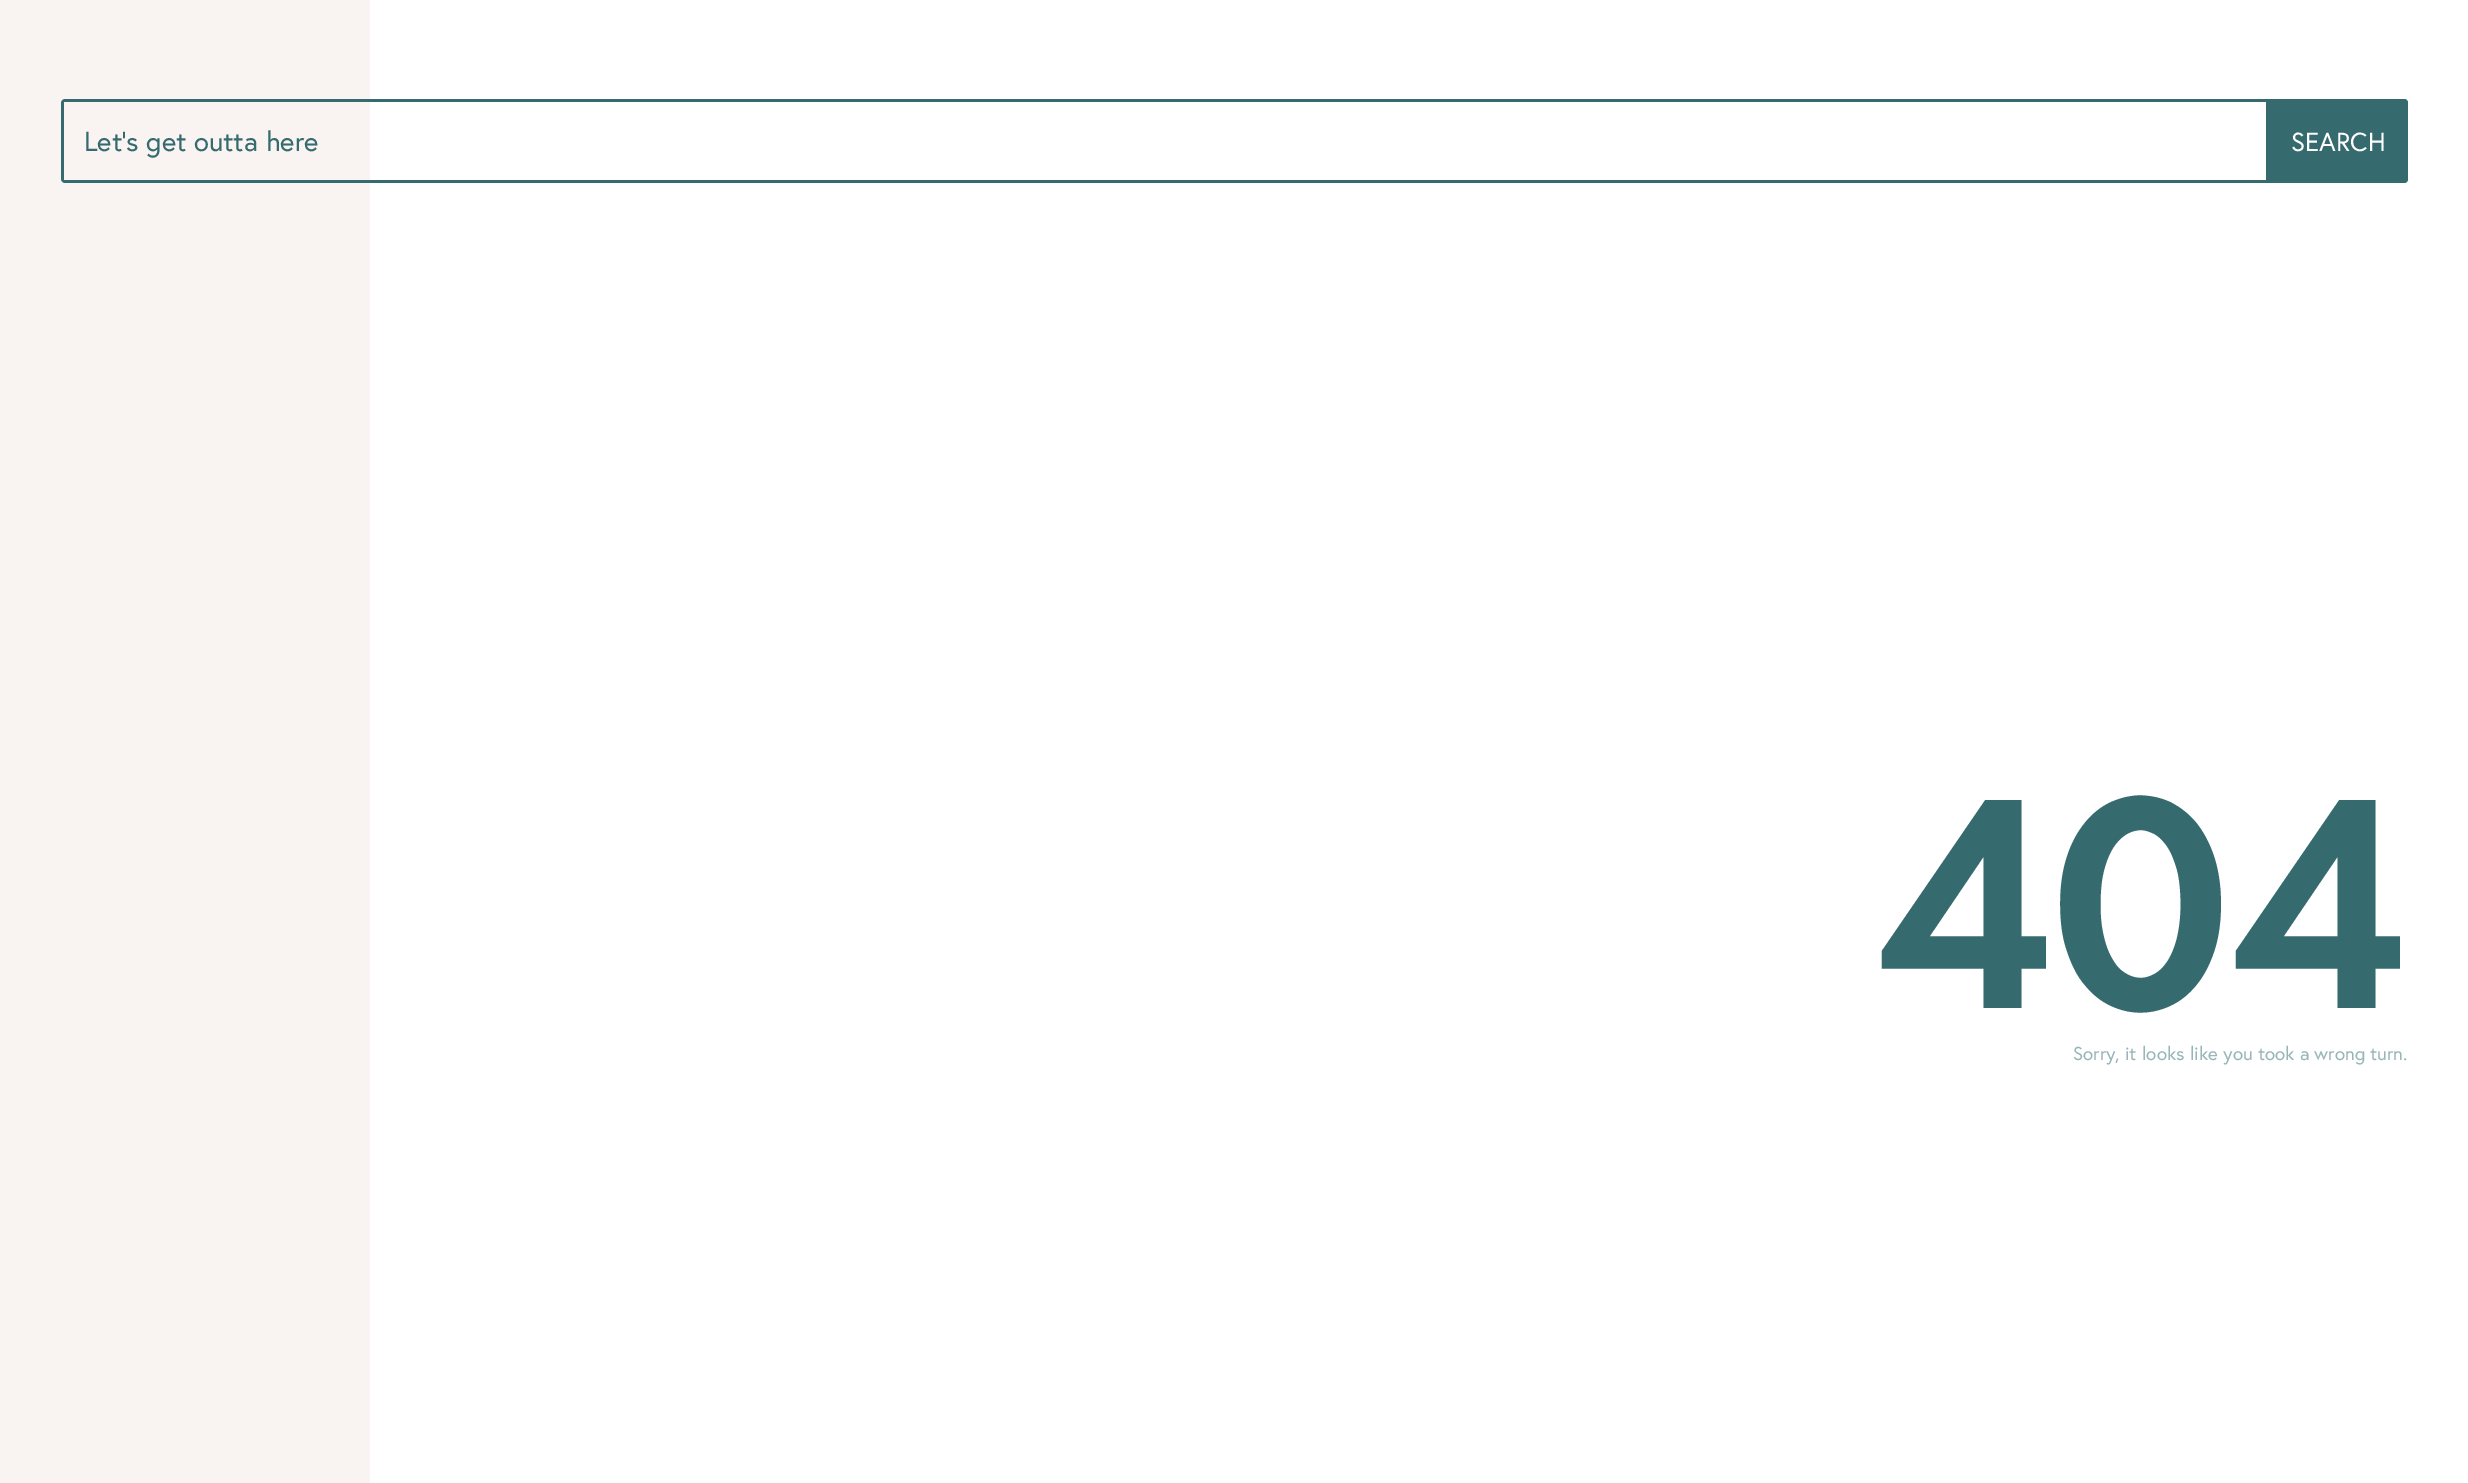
%!PS
<< /PageSize [2468 1483] >> setpagedevice
/mt/moveto load def
/li/lineto load def
/ct/curveto load def
/cp/closepath load def
/fl/fill load def
/co { dup -16 bitshift 255 div exch dup -8 bitshift 255 and 255 div exch 255 and 255 div setrgbcolor } def
/fn { [ exch dup neg 0 0 3 -1 roll 0 0 ] selectfont } def
/tx { co fn moveto show } def
/bx { co rectfill } def
0 1483 translate 1 -1 scale
4 setmiterlimit
0 0 2468 1483 16#FFFFFF bx
0 0 370 1483 16#F9F4F1 bx
16#356A6E co
65 99 mt 63 99 61 101 61 103 ct 61 179 li 61 181 63 183 65 183 ct 2269 183 li 2269 99 li cp 64 102 mt 64 180 li 2266 180 li 2266 102 li cp eofill
2269 99 mt 2404 99 li 2406 99 2408 101 2408 103 ct 2408 179 li 2408 181 2406 183 2404 183 ct 2269 183 li cp fl
2269 99 mt 2269 183 li 2404 183 li 2406 183 2408 181 2408 179 ct 2408 103 li 2408 101 2406 99 2404 99 ct cp 2272 102 mt 2272 180 li 2405 180 li 2405 102 li cp eofill
(Let's get outta here) 84 151 /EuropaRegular-Regular 27.5 16#356A6E tx
(SEARCH) 2291 151 /EuropaRegular-Regular 26 16#FFFFFF tx
(404) 1875 1008 /FuturaPT-Medium 312 16#356A6E tx
(Sorry, it looks like you took a wrong turn.) 2073 1060 /EuropaRegular-Regular 18.75 16#98B6B8 tx
showpage
